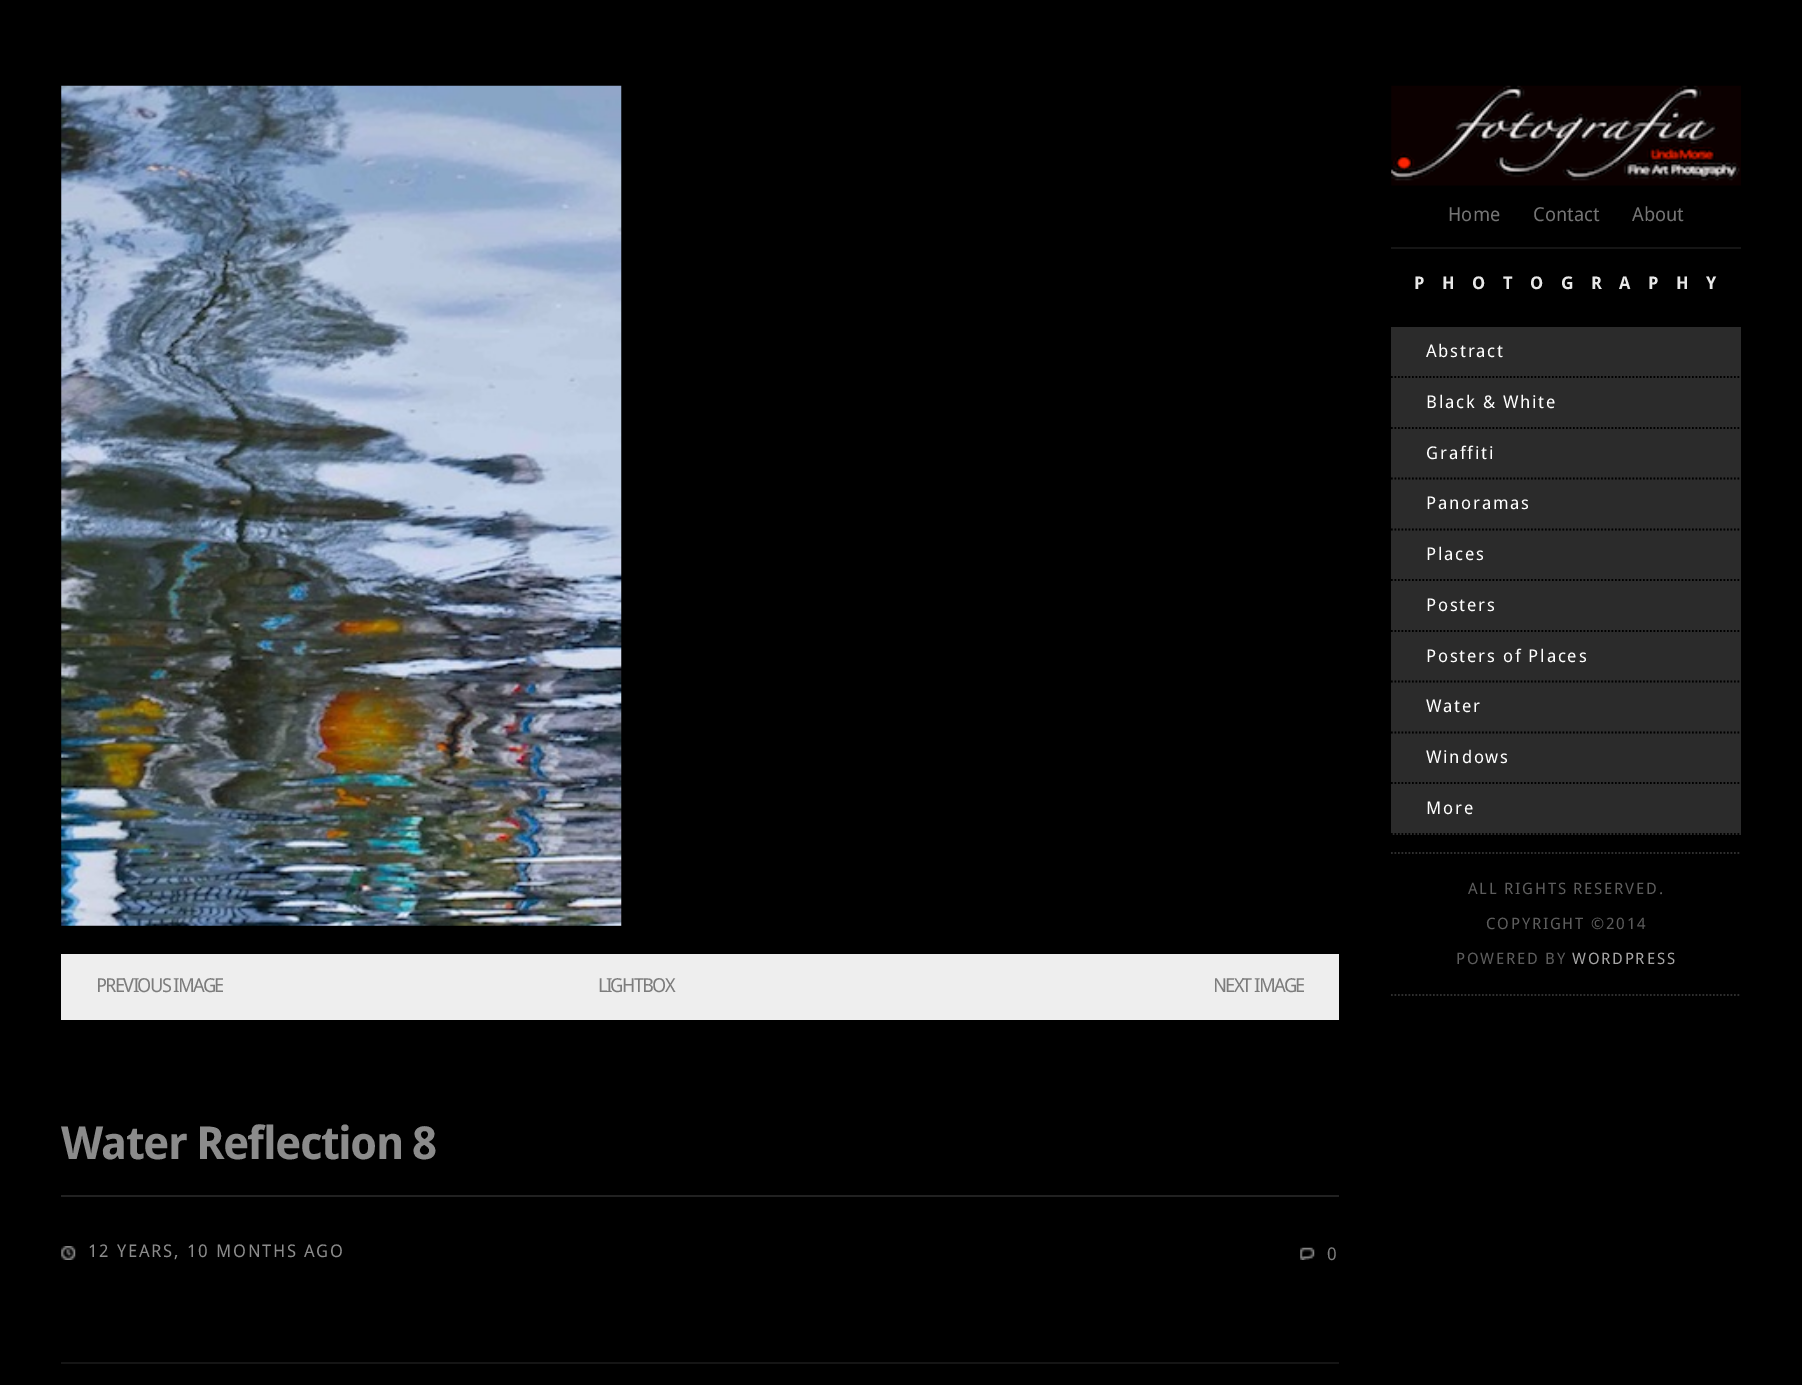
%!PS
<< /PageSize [1802 1385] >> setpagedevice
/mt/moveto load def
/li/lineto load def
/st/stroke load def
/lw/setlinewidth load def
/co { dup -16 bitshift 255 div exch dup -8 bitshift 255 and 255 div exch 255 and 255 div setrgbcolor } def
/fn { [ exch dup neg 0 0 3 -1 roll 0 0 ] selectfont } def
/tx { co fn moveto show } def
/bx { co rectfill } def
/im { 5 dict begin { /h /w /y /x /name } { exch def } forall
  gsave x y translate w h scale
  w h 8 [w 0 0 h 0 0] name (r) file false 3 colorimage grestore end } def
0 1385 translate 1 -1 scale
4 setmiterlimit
0 0 1802 1385 16#000000 bx
(media/1.raw) 1391 85 350 101 im
1391 247 350 2 16#151515 bx
1391 327 350 508 16#2B2B2B bx
16#000000 co
1.8 lw
[1.75 1.75] 0 setdash
1391 377 mt 1741 377 li st
1391 428 mt 1741 428 li st
1391 478.5 mt 1741 478.5 li st
1391 529.5 mt 1741 529.5 li st
1391 580 mt 1741 580 li st
1391 631 mt 1741 631 li st
1391 681.5 mt 1741 681.5 li st
1391 732.5 mt 1741 732.5 li st
1391 783 mt 1741 783 li st
1391 834 mt 1741 834 li st
16#2E2E2E co
1391 853 mt 1741 853 li st
1391 995 mt 1741 995 li st
(media/2.raw) 61 85 561 841 im
61 954 1278 66 16#EEEEEE bx
61 1195 1278 2 16#212121 bx
(media/3.raw) 61 1246 15 14 im
(media/4.raw) 1300 1247 15 13 im
61 1362 1278 2 16#151515 bx
(Home) 1448 221 /DroidSans-Regular 19.25 16#747474 tx
(Contact) 1533 221 /DroidSans-Regular 19.25 16#747474 tx
(About) 1632 221 /DroidSans-Regular 19.25 16#747474 tx
/DroidSans-Bold 17.5 fn
16#E8E8E8 co
1414 289 mt 17.5 0 (PHOTOGRAPHY) ashow
/DroidSans-Regular 17.5 fn
16#FFFFFF co
1426 357 mt 1.75 0 (Abstract) ashow
1426 408 mt 1.75 0 (Black & White) ashow
1426 459 mt 1.75 0 (Graffiti) ashow
1426 509 mt 1.75 0 (Panoramas) ashow
1426 560 mt 1.75 0 (Places) ashow
1426 611 mt 1.75 0 (Posters) ashow
1426 662 mt 1.75 0 (Posters of Places) ashow
1426 712 mt 1.75 0 (Water) ashow
1426 763 mt 1.75 0 (Windows) ashow
1426 814 mt 1.75 0 (More) ashow
/DroidSans-Regular 15.75 fn
16#5D5D5D co
1468 894 mt 1.75 0 (ALL RIGHTS RESERVED.) ashow
1486 929 mt 1.75 0 (COPYRIGHT ©2014) ashow
1456 964 mt 1.75 0 (POWERED BY) ashow
16#A6A5A5 co
1572 964 mt 1.75 0 (WORDPRESS) ashow
/DroidSans-Regular 19.25 fn
16#7D7D7D co
96 992 mt -1.75 0 (PREVIOUS IMAGE) ashow
598 992 mt -1.75 0 (LIGHTBOX) ashow
1213 992 mt -1.75 0 (NEXT IMAGE) ashow
/DroidSans-Bold 45.5 fn
16#8B8B8B co
61 1159 mt -1.75 0 (Water Reflection 8) ashow
/DroidSans-Regular 17.5 fn
88 1257 mt 1.75 0 (12 YEARS, 10 MONTHS AGO) ashow
16#7D7D7D co
1327 1260 mt 1.75 0 (0) ashow
showpage
